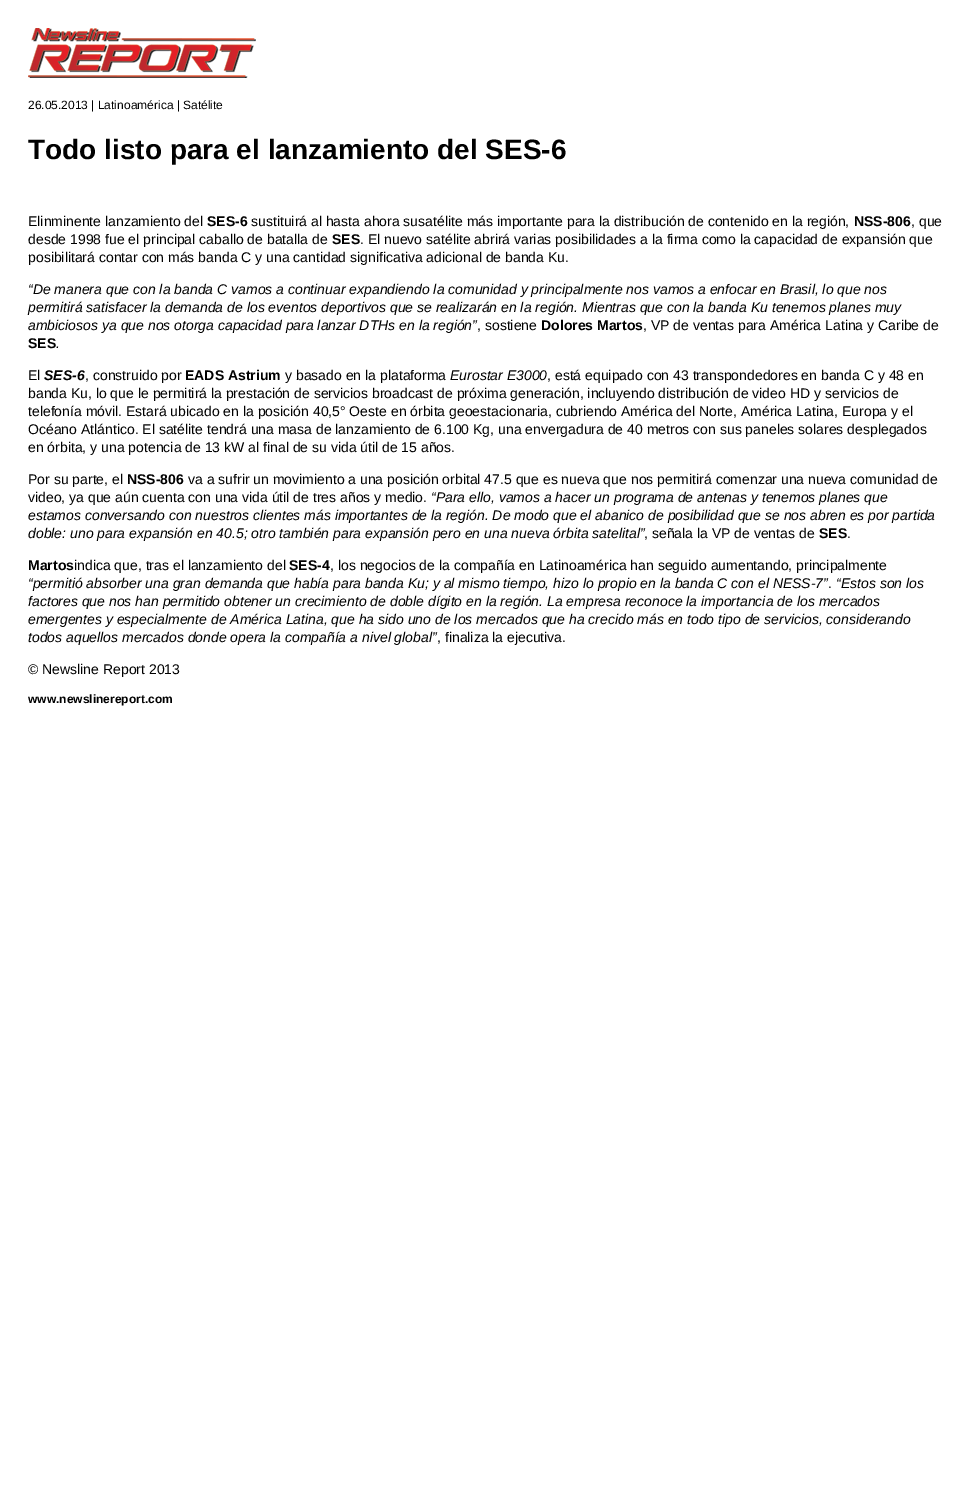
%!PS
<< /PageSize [972 1489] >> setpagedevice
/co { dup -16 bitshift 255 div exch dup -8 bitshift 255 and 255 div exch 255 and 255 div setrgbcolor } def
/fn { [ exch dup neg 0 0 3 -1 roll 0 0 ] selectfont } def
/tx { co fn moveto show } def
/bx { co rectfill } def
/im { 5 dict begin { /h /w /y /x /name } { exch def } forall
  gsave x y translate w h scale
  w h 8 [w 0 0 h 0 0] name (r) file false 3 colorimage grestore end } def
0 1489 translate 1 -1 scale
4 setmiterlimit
0 0 972 1489 16#FFFFFF bx
(media/1.raw) 28 28 228 50 im
(26.05.2013 | Latinoamérica | Satélite) 28 109 /LiberationSans-Regular 12 16#000000 tx
(Todo listo para el lanzamiento del SES-6) 28 159 /LiberationSans-Bold 28 16#000000 tx
(Elinminente lanzamiento del) 28 226 /LiberationSans-Regular 14 16#000000 tx
(SES-6) 207 226 /LiberationSans-Bold 14 16#000000 tx
(sustituirá al hasta ahora susatélite más importante para la distribución de contenido en la región,) 251 226 /LiberationSans-Regular 14 16#000000 tx
(NSS-806) 854 226 /LiberationSans-Bold 14 16#000000 tx
(, que) 911 226 /LiberationSans-Regular 14 16#000000 tx
(desde 1998 fue el principal caballo de batalla de) 28 244 /LiberationSans-Regular 14 16#000000 tx
(SES) 332 244 /LiberationSans-Bold 14 16#000000 tx
(. El nuevo satélite abrirá varias posibilidades a la firma como la capacidad de expansión que) 360 244 /LiberationSans-Regular 14 16#000000 tx
(posibilitará contar con más banda C y una cantidad significativa adicional de banda Ku.) 28 262 /LiberationSans-Regular 14 16#000000 tx
(“De manera que con la banda C vamos a continuar expandiendo la comunidad y principalmente nos vamos a enfocar en Brasil, lo que nos) 28 294 /LiberationSans-Italic 14 16#000000 tx
(permitirá satisfacer la demanda de los eventos deportivos que se realizarán en la región. Mientras que con la banda Ku tenemos planes muy) 28 312 /LiberationSans-Italic 14 16#000000 tx
(ambiciosos ya que nos otorga capacidad para lanzar DTHs en la región”) 28 330 /LiberationSans-Italic 14 16#000000 tx
(, sostiene) 477 330 /LiberationSans-Regular 14 16#000000 tx
(Dolores Martos) 541 330 /LiberationSans-Bold 14 16#000000 tx
(, VP de ventas para América Latina y Caribe de) 643 330 /LiberationSans-Regular 14 16#000000 tx
(SES) 28 348 /LiberationSans-Bold 14 16#000000 tx
(.) 56 348 /LiberationSans-Italic 14 16#000000 tx
(El) 28 380 /LiberationSans-Regular 14 16#000000 tx
(SES-6) 44 380 /LiberationSans-BoldItalic 14 16#000000 tx
(, construido por) 85 380 /LiberationSans-Regular 14 16#000000 tx
(EADS Astrium) 185 380 /LiberationSans-Bold 14 16#000000 tx
(y basado en la plataforma) 285 380 /LiberationSans-Regular 14 16#000000 tx
(Eurostar E3000) 450 380 /LiberationSans-Italic 14 16#000000 tx
(, está equipado con 43 transpondedores en banda C y 48 en) 547 380 /LiberationSans-Regular 14 16#000000 tx
(banda Ku, lo que le permitirá la prestación de servicios broadcast de próxima generación, incluyendo distribución de video HD y servicios de) 28 398 /LiberationSans-Regular 14 16#000000 tx
(telefonía móvil. Estará ubicado en la posición 40,5° Oeste en órbita geoestacionaria, cubriendo América del Norte, América Latina, Europa y el) 28 416 /LiberationSans-Regular 14 16#000000 tx
(Océano Atlántico. El satélite tendrá una masa de lanzamiento de 6.100 Kg, una envergadura de 40 metros con sus paneles solares desplegados) 28 434 /LiberationSans-Regular 14 16#000000 tx
(en órbita, y una potencia de 13 kW al final de su vida útil de 15 años.) 28 452 /LiberationSans-Regular 14 16#000000 tx
(Por su parte, el) 28 484 /LiberationSans-Regular 14 16#000000 tx
(NSS-806) 127 484 /LiberationSans-Bold 14 16#000000 tx
(va a sufrir un movimiento a una posición orbital 47.5 que es nueva que nos permitirá comenzar una nueva comunidad de) 188 484 /LiberationSans-Regular 14 16#000000 tx
(video, ya que aún cuenta con una vida útil de tres años y medio.) 28 502 /LiberationSans-Regular 14 16#000000 tx
(“Para ello, vamos a hacer un programa de antenas y tenemos planes que) 431 502 /LiberationSans-Italic 14 16#000000 tx
(estamos conversando con nuestros clientes más importantes de la región. De modo que el abanico de posibilidad que se nos abren es por partida) 28 520 /LiberationSans-Italic 14 16#000000 tx
(doble: uno para expansión en 40.5; otro también para expansión pero en una nueva órbita satelital”) 28 538 /LiberationSans-Italic 14 16#000000 tx
(, señala la VP de ventas de) 644 538 /LiberationSans-Regular 14 16#000000 tx
(SES) 819 538 /LiberationSans-Bold 14 16#000000 tx
(.) 847 538 /LiberationSans-Regular 14 16#000000 tx
(Martos) 28 570 /LiberationSans-Bold 14 16#000000 tx
(indica que, tras el lanzamiento del) 74 570 /LiberationSans-Regular 14 16#000000 tx
(SES-4) 289 570 /LiberationSans-Bold 14 16#000000 tx
(, los negocios de la compañía en Latinoamérica han seguido aumentando, principalmente) 330 570 /LiberationSans-Regular 14 16#000000 tx
(“permitió absorber una gran demanda que había para banda Ku; y al mismo tiempo, hizo lo propio en la banda C con el NESS-7”) 28 588 /LiberationSans-Italic 14 16#000000 tx
(.) 828 588 /LiberationSans-Regular 14 16#000000 tx
(“Estos son los) 836 588 /LiberationSans-Italic 14 16#000000 tx
(factores que nos han permitido obtener un crecimiento de doble dígito en la región. La empresa reconoce la importancia de los mercados) 28 606 /LiberationSans-Italic 14 16#000000 tx
(emergentes y especialmente de América Latina, que ha sido uno de los mercados que ha crecido más en todo tipo de servicios, considerando) 28 624 /LiberationSans-Italic 14 16#000000 tx
(todos aquellos mercados donde opera la compañía a nivel global”) 28 642 /LiberationSans-Italic 14 16#000000 tx
(, finaliza la ejecutiva.) 437 642 /LiberationSans-Regular 14 16#000000 tx
(© Newsline Report 2013) 28 674 /LiberationSans-Regular 14 16#000000 tx
(www.newslinereport.com) 28 703 /LiberationSans-Bold 12 16#000000 tx
showpage
